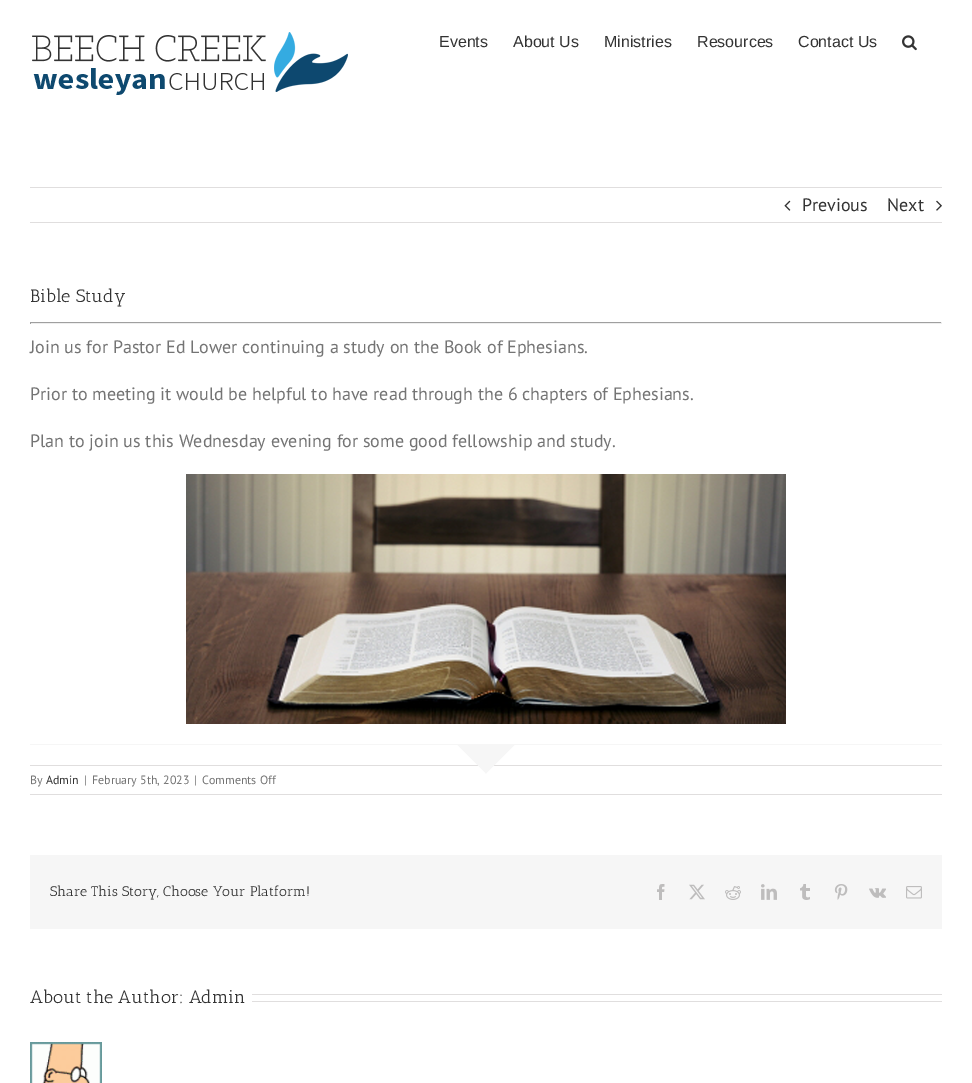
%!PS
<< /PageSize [972 1083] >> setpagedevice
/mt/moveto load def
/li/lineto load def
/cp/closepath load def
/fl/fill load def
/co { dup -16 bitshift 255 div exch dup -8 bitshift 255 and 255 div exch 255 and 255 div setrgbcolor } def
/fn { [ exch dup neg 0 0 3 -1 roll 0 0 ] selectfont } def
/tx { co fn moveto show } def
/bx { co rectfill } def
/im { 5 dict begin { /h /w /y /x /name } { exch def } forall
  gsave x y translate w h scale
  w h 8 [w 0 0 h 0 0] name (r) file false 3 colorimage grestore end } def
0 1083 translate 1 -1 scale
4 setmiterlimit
0 0 972 1083 16#FFFFFF bx
(media/1.raw) 32 32 316 63 im
(media/2.raw) 902 35 15 16 im
30 187 912 1 16#E0DEDE bx
30 222 912 1 16#E0DEDE bx
(media/3.raw) 784 200 7 11 im
(media/4.raw) 936 200 6 11 im
30 322 912 1 16#9F9F9F bx
941 322 1 2 16#EEEEEE bx
30 323 912 1 16#EEEEEE bx
30 322 1 2 16#9F9F9F bx
(media/5.raw) 186 474 600 250 im
30 744 912 1 16#F6F6F6 bx
30 765 912 1 16#E0DEDE bx
16#F6F6F6 co
457 744 mt 515 744 li 486 773 li cp fl
485.5 772.5 mt 513.5 744.5 li 514.5 745 li 486 773.5 li cp fl
457.5 745 mt 458.5 744.5 li 486.5 772.5 li 486 773.5 li cp fl
30 794 912 1 16#E0DEDE bx
30 855 912 74 16#F6F6F6 bx
(media/6.raw) 657 884 8 16 im
(media/7.raw) 689 884 16 16 im
(media/8.raw) 725 886 16 14 im
(media/9.raw) 761 884 16 16 im
(media/10.raw) 800 884 10 16 im
(media/11.raw) 834 884 14 16 im
(media/12.raw) 869 888 17 10 im
(media/13.raw) 906 886 16 13 im
252 994 690 1 16#E0DEDE bx
252 1001 690 1 16#E0DEDE bx
(media/14.raw) 30 1042 72 41 im
(Events) 439 47 /LiberationSans-Regular 16 16#333333 tx
(About Us) 513 47 /LiberationSans-Regular 16 16#333333 tx
(Ministries) 604 47 /LiberationSans-Regular 16 16#333333 tx
(Resources) 697 47 /LiberationSans-Regular 16 16#333333 tx
(Contact Us) 798 47 /LiberationSans-Regular 16 16#333333 tx
(Previous) 802 211 /PTSans-Regular 18 16#333333 tx
(Next) 887 211 /PTSans-Regular 18 16#333333 tx
(Bible Study) 30 302 /AnticSlab-Regular 18 16#333333 tx
(Join us for Pastor Ed Lower continuing a study on the Book of Ephesians.) 30 353 /PTSans-Regular 18 16#747474 tx
(Prior to meeting it would be helpful to have read through the 6 chapters of Ephesians.) 30 400 /PTSans-Regular 18 16#747474 tx
(Plan to join us this Wednesday evening for some good fellowship and study.) 30 447 /PTSans-Regular 18 16#747474 tx
(By) 30 784 /PTSans-Regular 12 16#747474 tx
(Admin) 46 784 /PTSans-Regular 12 16#333333 tx
(|) 84 784 /PTSans-Regular 12 16#747474 tx
(February 5th, 2023) 92 784 /PTSans-Regular 12 16#747474 tx
(|) 194 784 /PTSans-Regular 12 16#747474 tx
(Comments Off) 202 784 /PTSans-Regular 12 16#747474 tx
(Share This Story, Choose Your Platform!) 50 896 /AnticSlab-Regular 14 16#333333 tx
(About the Author: Admin) 30 1003 /AnticSlab-Regular 18 16#333333 tx
showpage
